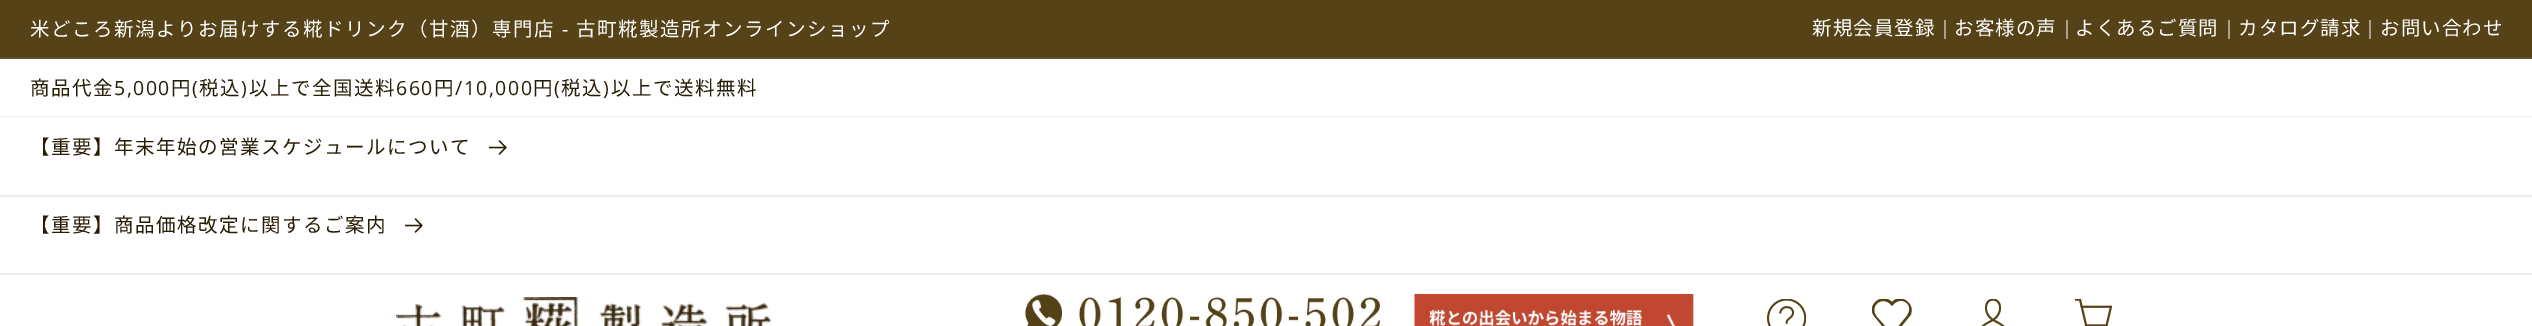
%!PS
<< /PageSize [2532 326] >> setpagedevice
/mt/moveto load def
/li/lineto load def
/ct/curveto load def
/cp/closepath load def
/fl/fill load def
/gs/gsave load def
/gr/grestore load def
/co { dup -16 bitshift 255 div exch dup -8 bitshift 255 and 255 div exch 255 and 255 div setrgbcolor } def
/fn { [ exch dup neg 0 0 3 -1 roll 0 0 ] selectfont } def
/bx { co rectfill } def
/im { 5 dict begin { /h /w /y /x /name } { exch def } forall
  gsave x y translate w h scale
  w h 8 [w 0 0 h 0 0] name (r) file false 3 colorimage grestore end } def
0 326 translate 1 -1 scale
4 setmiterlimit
0 0 2532 326 16#FFFFFF bx
0 0 2532 57 16#554217 bx
0 57 2532 2 16#63512A bx
1944 20 2 19 16#AAA18B bx
2066 20 2 19 16#AAA18B bx
2228 20 2 19 16#AAA18B bx
2369 20 2 19 16#AAA18B bx
0 116 2532 1 16#EEEDEB bx
0 195 2532 2 16#EEEDEB bx
(media/1.raw) 489 140 18 15 im
0 273 2532 2 16#EEEDEB bx
(media/1.raw) 405 218 18 15 im
(media/2.raw) 396 297 375 29 im
(media/3.raw) 1025 294 356 32 im
(media/4.raw) 1414 294 280 32 im
(media/5.raw) 1767 299 39 27 im
gs
1872 299 41 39 rectclip
16#554217 co
1892 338 mt 1874 316 li 1866 305 1882 292 1892 302 ct 1901 292 1917 305 1910 316 ct 1909 317 li cp 1877 317 mt 1892 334 li 1906 317 li 1916 305 1901 294 1892 306 ct 1883 294 1868 306 1877 317 ct cp fl
gr
(media/6.raw) 1981 299 24 27 im
(media/7.raw) 2075 299 37 27 im
/NotoSansJP-Regular 19.5 fn
16#FFFFFF co
30 36 mt 1.5 0 (米どころ新潟よりお届けする糀ドリンク（甘酒）専門店) ashow
/OpenSans-Regular 19.5 fn
562 36 mt 1.5 0 (-) ashow
/NotoSansJP-Regular 19.5 fn
576 36 mt 1.5 0 (古町糀製造所オンラインショップ) ashow
1812 35 mt 1 0 (新規会員登録) ashow
1954 35 mt 1 0 (お客様の声) ashow
2075 35 mt 1 0 (よくあるご質問) ashow
2238 35 mt 1 0 (カタログ請求) ashow
2380 35 mt 1 0 (お問い合わせ) ashow
16#271C06 co
30 95 mt 1.5 0 (商品代金) ashow
/OpenSans-Regular 19.5 fn
114 95 mt 1.5 0 (5,000) ashow
/NotoSansJP-Regular 19.5 fn
171 95 mt 1.5 0 (円) ashow
/OpenSans-Regular 19.5 fn
192 95 mt 1.5 0 (\() ashow
/NotoSansJP-Regular 19.5 fn
199 95 mt 1.5 0 (税込) ashow
/OpenSans-Regular 19.5 fn
241 95 mt 1.5 0 (\)) ashow
/NotoSansJP-Regular 19.5 fn
249 95 mt 1.5 0 (以上で全国送料) ashow
/OpenSans-Regular 19.5 fn
396 95 mt 1.5 0 (660) ashow
/NotoSansJP-Regular 19.5 fn
434 95 mt 1.5 0 (円) ashow
/OpenSans-Regular 19.5 fn
455 95 mt 1.5 0 (/10,000) ashow
/NotoSansJP-Regular 19.5 fn
533 95 mt 1.5 0 (円) ashow
/OpenSans-Regular 19.5 fn
554 95 mt 1.5 0 (\() ashow
/NotoSansJP-Regular 19.5 fn
561 95 mt 1.5 0 (税込) ashow
/OpenSans-Regular 19.5 fn
603 95 mt 1.5 0 (\)) ashow
/NotoSansJP-Regular 19.5 fn
611 95 mt 1.5 0 (以上で送料無料) ashow
30 154 mt 1.5 0 (【重要】年末年始の営業スケジュールについて) ashow
30 232 mt 1.5 0 (【重要】商品価格改定に関するご案内) ashow
showpage
